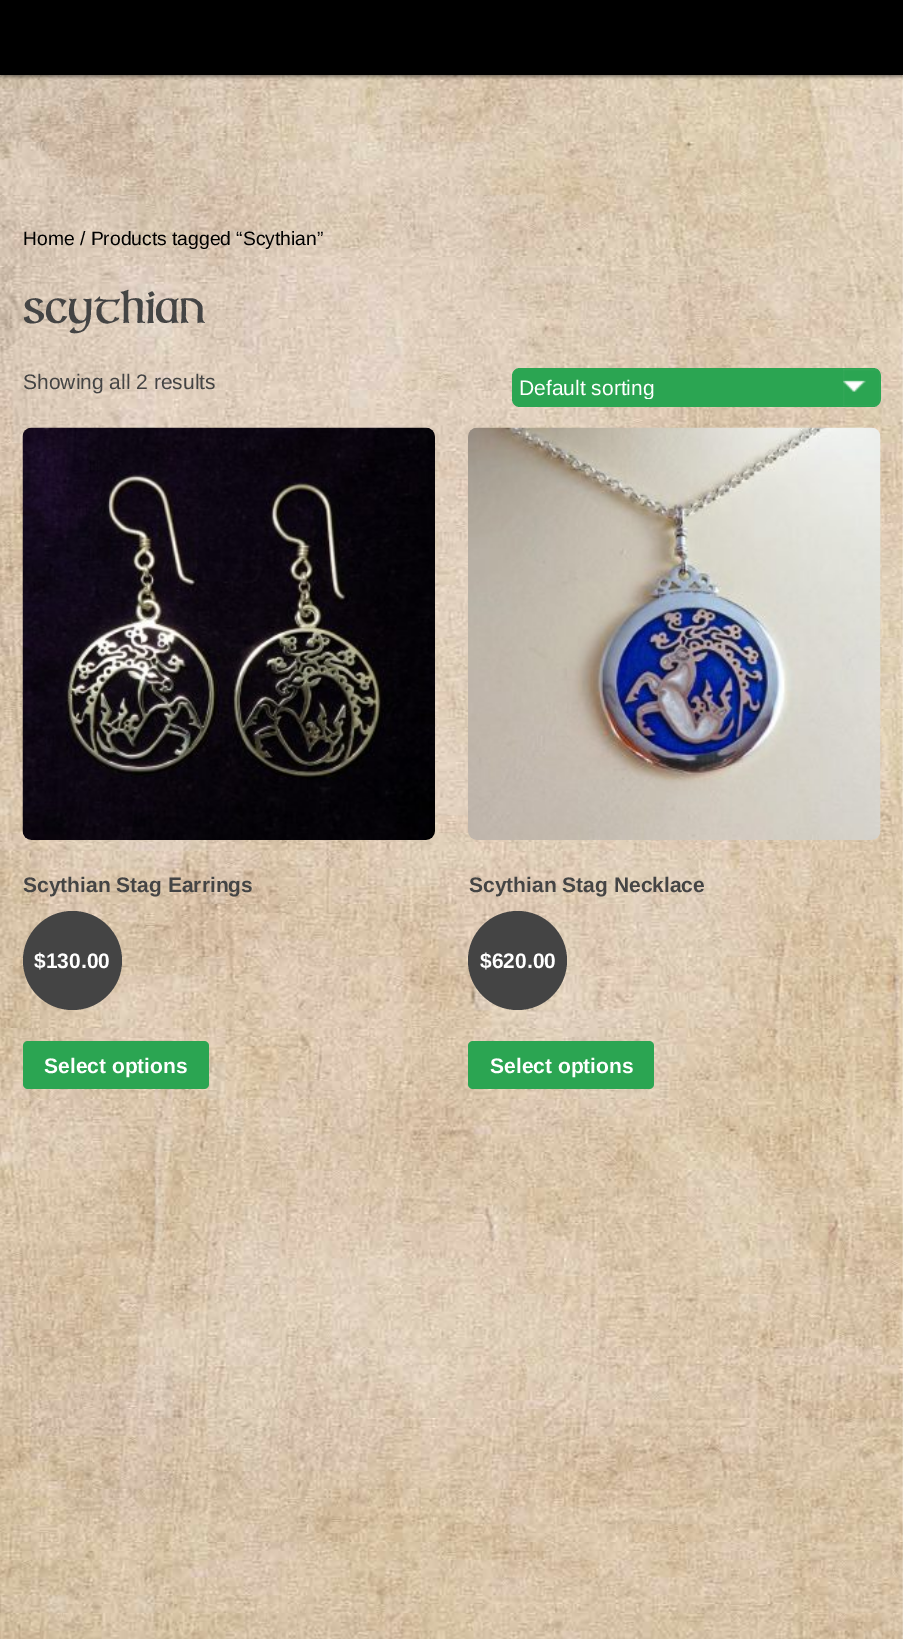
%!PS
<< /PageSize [903 1639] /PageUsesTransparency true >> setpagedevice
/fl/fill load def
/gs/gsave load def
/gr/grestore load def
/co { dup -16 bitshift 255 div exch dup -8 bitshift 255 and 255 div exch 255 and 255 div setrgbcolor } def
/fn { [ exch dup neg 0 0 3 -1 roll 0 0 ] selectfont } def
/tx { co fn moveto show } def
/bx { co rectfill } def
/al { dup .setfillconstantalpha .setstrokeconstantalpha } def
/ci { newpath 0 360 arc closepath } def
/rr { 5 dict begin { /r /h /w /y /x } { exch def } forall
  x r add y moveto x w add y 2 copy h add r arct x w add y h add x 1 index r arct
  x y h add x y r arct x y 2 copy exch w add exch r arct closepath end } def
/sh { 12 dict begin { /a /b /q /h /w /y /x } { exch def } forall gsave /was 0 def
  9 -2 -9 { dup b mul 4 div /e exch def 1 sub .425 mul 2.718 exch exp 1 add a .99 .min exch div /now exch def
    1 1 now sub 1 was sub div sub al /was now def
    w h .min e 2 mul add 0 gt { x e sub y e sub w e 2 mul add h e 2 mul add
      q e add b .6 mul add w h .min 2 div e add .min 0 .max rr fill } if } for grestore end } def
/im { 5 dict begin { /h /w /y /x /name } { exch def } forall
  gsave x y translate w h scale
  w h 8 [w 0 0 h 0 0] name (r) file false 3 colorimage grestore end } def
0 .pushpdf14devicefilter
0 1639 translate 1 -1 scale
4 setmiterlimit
0 0 903 1639 16#FFFFFF bx
(media/1.raw) 0 75 903 1564 im
16#000000 co
0 2 903 75 0 1.5 .4 sh
0 0 903 75 16#000000 bx
16#2BA552 co
512 368 369 39 8 rr fl
(media/2.raw) 843 369 38 37 im
(media/3.raw) 22 427 413 413 im
16#444444 co
72.5 960.5 49.5 ci fl
16#2BA552 co
23 1041 186 48 5 rr fl
(media/4.raw) 468 427 413 413 im
16#444444 co
517.5 960.5 49.5 ci fl
16#2BA552 co
468 1041 186 48 5 rr fl
(Home / Products tagged “Scythian”) 23 245 /LiberationSans-Regular 19.3 16#000000 tx
(Scythian) 23 323 /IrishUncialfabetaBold-Bold 42 16#444444 tx
(Showing all 2 results) 23 389 /LiberationSans-Regular 21 16#444444 tx
gs
519 375 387 24 rectclip
(Default sorting) 519 395 /LiberationSans-Regular 21 16#FFFFFF tx
gr
(Scythian Stag Earrings) 23 892 /LiberationSans-Bold 21 16#444444 tx
($130.00) 34 968 /LiberationSans-Bold 21 16#FFFFFF tx
(Select options) 44 1073 /LiberationSans-Bold 21 16#FFFFFF tx
(Scythian Stag Necklace) 469 892 /LiberationSans-Bold 21 16#444444 tx
($620.00) 480 968 /LiberationSans-Bold 21 16#FFFFFF tx
(Select options) 490 1073 /LiberationSans-Bold 21 16#FFFFFF tx
.poppdf14devicefilter showpage
